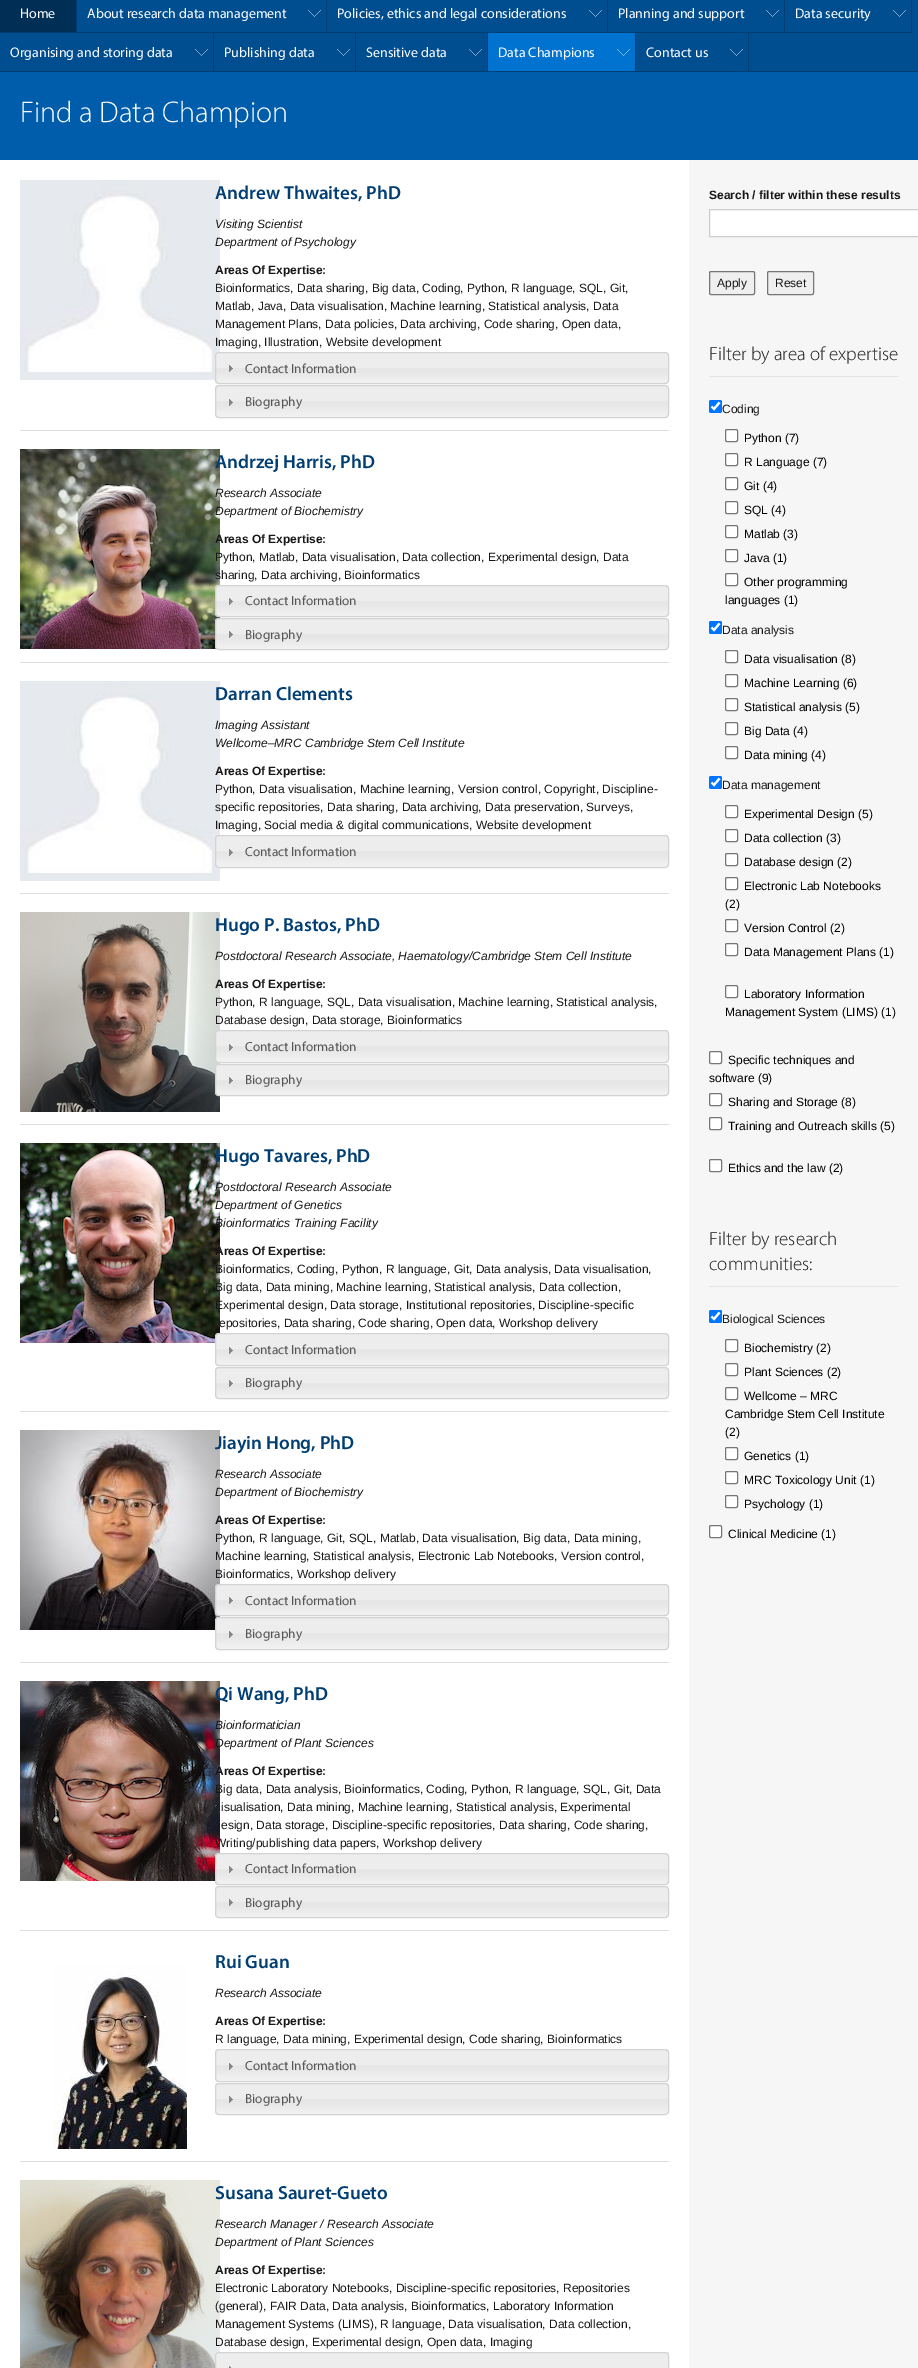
%!PS
<< /PageSize [918 2368] >> setpagedevice
/mt/moveto load def
/li/lineto load def
/cp/closepath load def
/fl/fill load def
/st/stroke load def
/gs/gsave load def
/gr/grestore load def
/lw/setlinewidth load def
/co { dup -16 bitshift 255 div exch dup -8 bitshift 255 and 255 div exch 255 and 255 div setrgbcolor } def
/fn { [ exch dup neg 0 0 3 -1 roll 0 0 ] selectfont } def
/tx { co fn moveto show } def
/bx { co rectfill } def
/rr { 5 dict begin { /r /h /w /y /x } { exch def } forall
  x r add y moveto x w add y 2 copy h add r arct x w add y h add x 1 index r arct
  x y h add x y r arct x y 2 copy exch w add exch r arct closepath end } def
/im { 5 dict begin { /h /w /y /x /name } { exch def } forall
  gsave x y translate w h scale
  w h 8 [w 0 0 h 0 0] name (r) file false 3 colorimage grestore end } def
0 2368 translate 1 -1 scale
4 setmiterlimit
0 0 918 2368 16#FFFFFF bx
77 0 841 71 16#004E8F bx
749 71 169 1 16#003E74 bx
0 0 76 32 16#002E55 bx
76 0 1 33 16#003E74 bx
(media/1.raw) 308 10 13 7 im
326 0 1 33 16#003E74 bx
(media/1.raw) 589 10 13 7 im
607 0 1 33 16#003E74 bx
(media/1.raw) 766 10 13 7 im
784 0 1 33 16#003E74 bx
749 32 36 1 16#003E74 bx
(media/1.raw) 893 10 13 7 im
911 0 1 33 16#003E74 bx
785 32 127 1 16#003E74 bx
0 33 77 38 16#004E8F bx
(media/1.raw) 195 49 13 7 im
0 32 749 1 16#003E74 bx
213 32 1 40 16#003E74 bx
0 71 214 1 16#003E74 bx
(media/1.raw) 337 49 13 7 im
355 32 1 40 16#003E74 bx
214 71 142 1 16#003E74 bx
(media/1.raw) 469 49 13 7 im
487 32 1 40 16#003E74 bx
356 71 132 1 16#003E74 bx
488 33 147 38 16#0072CF bx
(media/2.raw) 617 49 13 7 im
635 32 1 40 16#003E74 bx
488 71 148 1 16#003E74 bx
(media/1.raw) 730 49 13 7 im
748 32 1 40 16#003E74 bx
636 71 113 1 16#003E74 bx
0 72 918 88 16#005DAB bx
20 430 649 1 16#DEDEDE bx
(media/3.raw) 20 180 200 200 im
(media/4.raw) 215 352 454 32 im
16#D3D3D3 co
215.5 352.5 453 31 3.5 rr st
(media/5.raw) 229 365 4 7 im
(media/6.raw) 215 385 454 33 im
215.5 385.5 453 32 3.5 rr st
(media/7.raw) 229 399 4 7 im
20 662 649 1 16#DEDEDE bx
(media/8.raw) 20 449 200 200 im
(media/9.raw) 215 585 454 32 im
16#D3D3D3 co
215.5 585.5 453 31 3.5 rr st
(media/5.raw) 229 598 4 7 im
(media/10.raw) 215 618 454 32 im
215.5 618.5 453 31 3.5 rr st
(media/5.raw) 229 631 4 7 im
20 893 649 1 16#DEDEDE bx
(media/3.raw) 20 681 200 200 im
(media/11.raw) 215 835 454 33 im
16#D3D3D3 co
215.5 835.5 453 32 3.5 rr st
(media/7.raw) 229 849 4 7 im
20 1124 649 1 16#DEDEDE bx
(media/12.raw) 20 912 200 200 im
(media/13.raw) 215 1030 454 33 im
16#D3D3D3 co
215.5 1030.5 453 32 3.5 rr st
(media/7.raw) 229 1044 4 7 im
(media/14.raw) 215 1064 454 32 im
215.5 1064.5 453 31 3.5 rr st
(media/5.raw) 229 1077 4 7 im
20 1411 649 1 16#DEDEDE bx
(media/15.raw) 20 1143 200 200 im
(media/16.raw) 215 1333 454 33 im
16#D3D3D3 co
215.5 1333.5 453 32 3.5 rr st
(media/7.raw) 229 1347 4 7 im
(media/17.raw) 215 1367 454 32 im
215.5 1367.5 453 31 3.5 rr st
(media/5.raw) 229 1380 4 7 im
20 1662 649 1 16#DEDEDE bx
(media/18.raw) 20 1430 200 200 im
(media/19.raw) 215 1584 454 32 im
16#D3D3D3 co
215.5 1584.5 453 31 3.5 rr st
(media/5.raw) 229 1597 4 7 im
(media/20.raw) 215 1617 454 33 im
215.5 1617.5 453 32 3.5 rr st
(media/7.raw) 229 1631 4 7 im
20 1930 649 1 16#DEDEDE bx
(media/21.raw) 20 1681 200 200 im
(media/22.raw) 215 1853 454 32 im
16#D3D3D3 co
215.5 1853.5 453 31 3.5 rr st
(media/5.raw) 229 1866 4 7 im
(media/17.raw) 215 1886 454 32 im
215.5 1886.5 453 31 3.5 rr st
(media/5.raw) 229 1899 4 7 im
20 2161 649 1 16#DEDEDE bx
(media/23.raw) 54 1965 133 184 im
(media/6.raw) 215 2049 454 33 im
16#D3D3D3 co
215.5 2049.5 453 32 3.5 rr st
(media/7.raw) 229 2063 4 7 im
(media/17.raw) 215 2083 454 32 im
215.5 2083.5 453 31 3.5 rr st
(media/5.raw) 229 2096 4 7 im
(media/24.raw) 20 2180 200 188 im
215 2352 454 16 16#EDEDED bx
16#D3D3D3 co
215.5 2352.5 453 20 3.5 rr st
(media/25.raw) 229 2366 3 2 im
689 160 229 2208 16#F6F6F6 bx
16#FFFFFF co
709.5 209.5 mt 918.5 209.5 li 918.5 236.5 li 709.5 236.5 li cp gs fl gr
16#CCCCCC co
st
16#EFEFEF co
709.5 271.5 45 23 1.5 rr gs fl gr
16#767676 co
st
16#EFEFEF co
767.5 271.5 46 23 1.5 rr gs fl gr
16#767676 co
st
709 376 189 1 16#E4E4E4 bx
16#0075FF co
709 400 13 13 2 rr fl
16#FFFFFF co
2.1 lw
711.5 406.5 mt 714 409 li 719.5 402.5 li st
725.5 429.5 12 12 1.5 rr gs fl gr
16#767676 co
1 lw
st
16#FFFFFF co
725.5 453.5 12 12 1.5 rr gs fl gr
16#767676 co
st
16#FFFFFF co
725.5 477.5 12 12 1.5 rr gs fl gr
16#767676 co
st
16#FFFFFF co
725.5 501.5 12 12 1.5 rr gs fl gr
16#767676 co
st
16#FFFFFF co
725.5 525.5 12 12 1.5 rr gs fl gr
16#767676 co
st
16#FFFFFF co
725.5 549.5 12 12 1.5 rr gs fl gr
16#767676 co
st
16#FFFFFF co
725.5 573.5 12 12 1.5 rr gs fl gr
16#767676 co
st
16#0075FF co
709 621 13 13 2 rr fl
16#FFFFFF co
2.1 lw
711.5 627.5 mt 714 630 li 719.5 623.5 li st
725.5 650.5 12 12 1.5 rr gs fl gr
16#767676 co
1 lw
st
16#FFFFFF co
725.5 674.5 12 12 1.5 rr gs fl gr
16#767676 co
st
16#FFFFFF co
725.5 698.5 12 12 1.5 rr gs fl gr
16#767676 co
st
16#FFFFFF co
725.5 722.5 12 12 1.5 rr gs fl gr
16#767676 co
st
16#FFFFFF co
725.5 746.5 12 12 1.5 rr gs fl gr
16#767676 co
st
16#0075FF co
709 776 13 13 2 rr fl
16#FFFFFF co
2.1 lw
711.5 782.5 mt 714 785 li 719.5 778.5 li st
725.5 805.5 12 12 1.5 rr gs fl gr
16#767676 co
1 lw
st
16#FFFFFF co
725.5 829.5 12 12 1.5 rr gs fl gr
16#767676 co
st
16#FFFFFF co
725.5 853.5 12 12 1.5 rr gs fl gr
16#767676 co
st
16#FFFFFF co
725.5 877.5 12 12 1.5 rr gs fl gr
16#767676 co
st
16#FFFFFF co
725.5 919.5 12 12 1.5 rr gs fl gr
16#767676 co
st
16#FFFFFF co
725.5 943.5 12 12 1.5 rr gs fl gr
16#767676 co
st
16#FFFFFF co
725.5 985.5 12 12 1.5 rr gs fl gr
16#767676 co
st
16#FFFFFF co
709.5 1051.5 12 12 1.5 rr gs fl gr
16#767676 co
st
16#FFFFFF co
709.5 1093.5 12 12 1.5 rr gs fl gr
16#767676 co
st
16#FFFFFF co
709.5 1117.5 12 12 1.5 rr gs fl gr
16#767676 co
st
16#FFFFFF co
709.5 1159.5 12 12 1.5 rr gs fl gr
16#767676 co
st
709 1286 189 1 16#E4E4E4 bx
16#0075FF co
709 1310 13 13 2 rr fl
16#FFFFFF co
2.1 lw
711.5 1316.5 mt 714 1319 li 719.5 1312.5 li st
725.5 1339.5 12 12 1.5 rr gs fl gr
16#767676 co
1 lw
st
16#FFFFFF co
725.5 1363.5 12 12 1.5 rr gs fl gr
16#767676 co
st
16#FFFFFF co
725.5 1387.5 12 12 1.5 rr gs fl gr
16#767676 co
st
16#FFFFFF co
725.5 1447.5 12 12 1.5 rr gs fl gr
16#767676 co
st
16#FFFFFF co
725.5 1471.5 12 12 1.5 rr gs fl gr
16#767676 co
st
16#FFFFFF co
725.5 1495.5 12 12 1.5 rr gs fl gr
16#767676 co
st
16#FFFFFF co
709.5 1525.5 12 12 1.5 rr gs fl gr
16#767676 co
st
(Home) 20 18 /Myriad-Regular 14 16#FFFFFF tx
(About research data management) 87 18 /Myriad-Regular 14 16#FFFFFF tx
(Policies, ethics and legal considerations) 337 18 /Myriad-Regular 14 16#FFFFFF tx
(Planning and support) 618 18 /Myriad-Regular 14 16#FFFFFF tx
(Data security) 795 18 /Myriad-Regular 14 16#FFFFFF tx
(Organising and storing data) 10 57 /Myriad-Regular 14 16#FFFFFF tx
(Publishing data) 224 57 /Myriad-Regular 14 16#FFFFFF tx
(Sensitive data) 366 57 /Myriad-Regular 14 16#FFFFFF tx
(Data Champions) 498 57 /Myriad-Regular 14 16#FFFFFF tx
(Contact us) 646 57 /Myriad-Regular 14 16#FFFFFF tx
(Find a Data Champion) 20 122 /Myriad-Light 30 16#FFFFFF tx
(Andrew Thwaites, PhD) 215 199 /Myriad-SemiBold 19 16#003E74 tx
(Visiting Scientist) 215 228 /LiberationSans-Italic 12 16#171717 tx
(Department of Psychology) 215 246 /LiberationSans-Italic 12 16#171717 tx
(Areas Of Expertise:) 215 274 /LiberationSans-Bold 12 16#171717 tx
(Bioinformatics, Data sharing, Big data, Coding, Python, R language, SQL, Git,) 215 292 /LiberationSans-Regular 12 16#171717 tx
(Matlab, Java, Data visualisation, Machine learning, Statistical analysis, Data) 215 310 /LiberationSans-Regular 12 16#171717 tx
(Management Plans, Data policies, Data archiving, Code sharing, Open data,) 215 328 /LiberationSans-Regular 12 16#171717 tx
(Imaging, Illustration, Website development) 215 346 /LiberationSans-Regular 12 16#171717 tx
(Contact Information) 245 373 /Myriad-Regular 13.25 16#555555 tx
(Biography) 245 406 /Myriad-Regular 13.25 16#555555 tx
(Andrzej Harris, PhD) 215 468 /Myriad-SemiBold 19 16#003E74 tx
(Research Associate) 215 497 /LiberationSans-Italic 12 16#171717 tx
(Department of Biochemistry) 215 515 /LiberationSans-Italic 12 16#171717 tx
(Areas Of Expertise:) 215 543 /LiberationSans-Bold 12 16#171717 tx
(Python, Matlab, Data visualisation, Data collection, Experimental design, Data) 215 561 /LiberationSans-Regular 12 16#171717 tx
(sharing, Data archiving, Bioinformatics) 215 579 /LiberationSans-Regular 12 16#171717 tx
(Contact Information) 245 605 /Myriad-Regular 13.25 16#555555 tx
(Biography) 245 639 /Myriad-Regular 13.25 16#555555 tx
(Darran Clements) 215 700 /Myriad-SemiBold 19 16#003E74 tx
(Imaging Assistant) 215 729 /LiberationSans-Italic 12 16#171717 tx
(Wellcome–MRC Cambridge Stem Cell Institute) 215 747 /LiberationSans-Italic 12 16#171717 tx
(Areas Of Expertise:) 215 775 /LiberationSans-Bold 12 16#171717 tx
(Python, Data visualisation, Machine learning, Version control, Copyright, Discipline-) 215 793 /LiberationSans-Regular 12 16#171717 tx
(specific repositories, Data sharing, Data archiving, Data preservation, Surveys,) 215 811 /LiberationSans-Regular 12 16#171717 tx
(Imaging, Social media & digital communications, Website development) 215 829 /LiberationSans-Regular 12 16#171717 tx
(Contact Information) 245 856 /Myriad-Regular 13.25 16#555555 tx
(Hugo P. Bastos, PhD) 215 931 /Myriad-SemiBold 19 16#003E74 tx
(Postdoctoral Research Associate, Haematology/Cambridge Stem Cell Institute) 215 960 /LiberationSans-Italic 12 16#171717 tx
(Areas Of Expertise:) 215 988 /LiberationSans-Bold 12 16#171717 tx
(Python, R language, SQL, Data visualisation, Machine learning, Statistical analysis,) 215 1006 /LiberationSans-Regular 12 16#171717 tx
(Database design, Data storage, Bioinformatics) 215 1024 /LiberationSans-Regular 12 16#171717 tx
(Contact Information) 245 1051 /Myriad-Regular 13.25 16#555555 tx
(Biography) 245 1084 /Myriad-Regular 13.25 16#555555 tx
(Hugo Tavares, PhD) 215 1162 /Myriad-SemiBold 19 16#003E74 tx
(Postdoctoral Research Associate) 215 1191 /LiberationSans-Italic 12 16#171717 tx
(Department of Genetics) 215 1209 /LiberationSans-Italic 12 16#171717 tx
(Bioinformatics Training Facility) 215 1227 /LiberationSans-Italic 12 16#171717 tx
(Areas Of Expertise:) 215 1255 /LiberationSans-Bold 12 16#171717 tx
(Bioinformatics, Coding, Python, R language, Git, Data analysis, Data visualisation,) 215 1273 /LiberationSans-Regular 12 16#171717 tx
(Big data, Data mining, Machine learning, Statistical analysis, Data collection,) 215 1291 /LiberationSans-Regular 12 16#171717 tx
(Experimental design, Data storage, Institutional repositories, Discipline-specific) 215 1309 /LiberationSans-Regular 12 16#171717 tx
(epositories, Data sharing, Code sharing, Open data, Workshop delivery) 219 1327 /LiberationSans-Regular 12 16#171717 tx
(Contact Information) 245 1354 /Myriad-Regular 13.25 16#555555 tx
(Biography) 245 1387 /Myriad-Regular 13.25 16#555555 tx
(Jiayin Hong, PhD) 215 1449 /Myriad-SemiBold 19 16#003E74 tx
(Research Associate) 215 1478 /LiberationSans-Italic 12 16#171717 tx
(Department of Biochemistry) 215 1496 /LiberationSans-Italic 12 16#171717 tx
(Areas Of Expertise:) 215 1524 /LiberationSans-Bold 12 16#171717 tx
(Python, R language, Git, SQL, Matlab, Data visualisation, Big data, Data mining,) 215 1542 /LiberationSans-Regular 12 16#171717 tx
(Machine learning, Statistical analysis, Electronic Lab Notebooks, Version control,) 215 1560 /LiberationSans-Regular 12 16#171717 tx
(Bioinformatics, Workshop delivery) 215 1578 /LiberationSans-Regular 12 16#171717 tx
(Contact Information) 245 1605 /Myriad-Regular 13.25 16#555555 tx
(Biography) 245 1638 /Myriad-Regular 13.25 16#555555 tx
(Qi Wang, PhD) 215 1700 /Myriad-SemiBold 19 16#003E74 tx
(Bioinformatician) 215 1729 /LiberationSans-Italic 12 16#171717 tx
(Department of Plant Sciences) 215 1747 /LiberationSans-Italic 12 16#171717 tx
(Areas Of Expertise:) 215 1775 /LiberationSans-Bold 12 16#171717 tx
(Big data, Data analysis, Bioinformatics, Coding, Python, R language, SQL, Git, Data) 215 1793 /LiberationSans-Regular 12 16#171717 tx
(isualisation, Data mining, Machine learning, Statistical analysis, Experimental) 221 1811 /LiberationSans-Regular 12 16#171717 tx
(esign, Data storage, Discipline-specific repositories, Data sharing, Code sharing,) 221 1829 /LiberationSans-Regular 12 16#171717 tx
(Writing/publishing data papers, Workshop delivery) 215 1847 /LiberationSans-Regular 12 16#171717 tx
(Contact Information) 245 1873 /Myriad-Regular 13.25 16#555555 tx
(Biography) 245 1907 /Myriad-Regular 13.25 16#555555 tx
(Rui Guan) 215 1968 /Myriad-SemiBold 19 16#003E74 tx
(Research Associate) 215 1997 /LiberationSans-Italic 12 16#171717 tx
(Areas Of Expertise:) 215 2025 /LiberationSans-Bold 12 16#171717 tx
(R language, Data mining, Experimental design, Code sharing, Bioinformatics) 215 2043 /LiberationSans-Regular 12 16#171717 tx
(Contact Information) 245 2070 /Myriad-Regular 13.25 16#555555 tx
(Biography) 245 2103 /Myriad-Regular 13.25 16#555555 tx
(Susana Sauret-Gueto) 215 2199 /Myriad-SemiBold 19 16#003E74 tx
(Research Manager / Research Associate) 215 2228 /LiberationSans-Italic 12 16#171717 tx
(Department of Plant Sciences) 215 2246 /LiberationSans-Italic 12 16#171717 tx
(Areas Of Expertise:) 215 2274 /LiberationSans-Bold 12 16#171717 tx
(Electronic Laboratory Notebooks, Discipline-specific repositories, Repositories) 215 2292 /LiberationSans-Regular 12 16#171717 tx
(\(general\), FAIR Data, Data analysis, Bioinformatics, Laboratory Information) 215 2310 /LiberationSans-Regular 12 16#171717 tx
(Management Systems \(LIMS\), R language, Data visualisation, Data collection,) 215 2328 /LiberationSans-Regular 12 16#171717 tx
(Database design, Experimental design, Open data, Imaging) 215 2346 /LiberationSans-Regular 12 16#171717 tx
(Search / filter within these results) 709 199 /LiberationSans-Bold 12 16#171717 tx
(Apply) 717 287 /LiberationSans-Regular 12 16#171717 tx
(Reset) 775 287 /LiberationSans-Regular 12 16#171717 tx
(Filter by area of expertise) 709 360 /Myriad-Light 19 16#171717 tx
(Coding) 722 413 /LiberationSans-Regular 12 16#171717 tx
(Python \(7\)) 744 442 /LiberationSans-Regular 12 16#000000 tx
(R Language \(7\)) 744 466 /LiberationSans-Regular 12 16#000000 tx
(Git \(4\)) 744 490 /LiberationSans-Regular 12 16#000000 tx
(SQL \(4\)) 744 514 /LiberationSans-Regular 12 16#000000 tx
(Matlab \(3\)) 744 538 /LiberationSans-Regular 12 16#000000 tx
(Java \(1\)) 744 562 /LiberationSans-Regular 12 16#000000 tx
(Other programming) 744 586 /LiberationSans-Regular 12 16#000000 tx
(languages \(1\)) 725 604 /LiberationSans-Regular 12 16#000000 tx
(Data analysis) 722 634 /LiberationSans-Regular 12 16#171717 tx
(Data visualisation \(8\)) 744 663 /LiberationSans-Regular 12 16#000000 tx
(Machine Learning \(6\)) 744 687 /LiberationSans-Regular 12 16#000000 tx
(Statistical analysis \(5\)) 744 711 /LiberationSans-Regular 12 16#000000 tx
(Big Data \(4\)) 744 735 /LiberationSans-Regular 12 16#000000 tx
(Data mining \(4\)) 744 759 /LiberationSans-Regular 12 16#000000 tx
(Data management) 722 789 /LiberationSans-Regular 12 16#171717 tx
(Experimental Design \(5\)) 744 818 /LiberationSans-Regular 12 16#000000 tx
(Data collection \(3\)) 744 842 /LiberationSans-Regular 12 16#000000 tx
(Database design \(2\)) 744 866 /LiberationSans-Regular 12 16#000000 tx
(Electronic Lab Notebooks) 744 890 /LiberationSans-Regular 12 16#000000 tx
(\(2\)) 725 908 /LiberationSans-Regular 12 16#000000 tx
(Version Control \(2\)) 744 932 /LiberationSans-Regular 12 16#000000 tx
(Data Management Plans \(1\)) 744 956 /LiberationSans-Regular 12 16#000000 tx
(Laboratory Information) 744 998 /LiberationSans-Regular 12 16#000000 tx
(Management System \(LIMS\) \(1\)) 725 1016 /LiberationSans-Regular 12 16#000000 tx
(Specific techniques and) 728 1064 /LiberationSans-Regular 12 16#000000 tx
(software \(9\)) 709 1082 /LiberationSans-Regular 12 16#000000 tx
(Sharing and Storage \(8\)) 728 1106 /LiberationSans-Regular 12 16#000000 tx
(Training and Outreach skills \(5\)) 728 1130 /LiberationSans-Regular 12 16#000000 tx
(Ethics and the law \(2\)) 728 1172 /LiberationSans-Regular 12 16#000000 tx
(Filter by research) 709 1245 /Myriad-Light 19 16#171717 tx
(communities:) 709 1270 /Myriad-Light 19 16#171717 tx
(Biological Sciences) 722 1323 /LiberationSans-Regular 12 16#171717 tx
(Biochemistry \(2\)) 744 1352 /LiberationSans-Regular 12 16#000000 tx
(Plant Sciences \(2\)) 744 1376 /LiberationSans-Regular 12 16#000000 tx
(Wellcome – MRC) 744 1400 /LiberationSans-Regular 12 16#000000 tx
(Cambridge Stem Cell Institute) 725 1418 /LiberationSans-Regular 12 16#000000 tx
(\(2\)) 725 1436 /LiberationSans-Regular 12 16#000000 tx
(Genetics \(1\)) 744 1460 /LiberationSans-Regular 12 16#000000 tx
(MRC Toxicology Unit \(1\)) 744 1484 /LiberationSans-Regular 12 16#000000 tx
(Psychology \(1\)) 744 1508 /LiberationSans-Regular 12 16#000000 tx
(Clinical Medicine \(1\)) 728 1538 /LiberationSans-Regular 12 16#000000 tx
showpage
